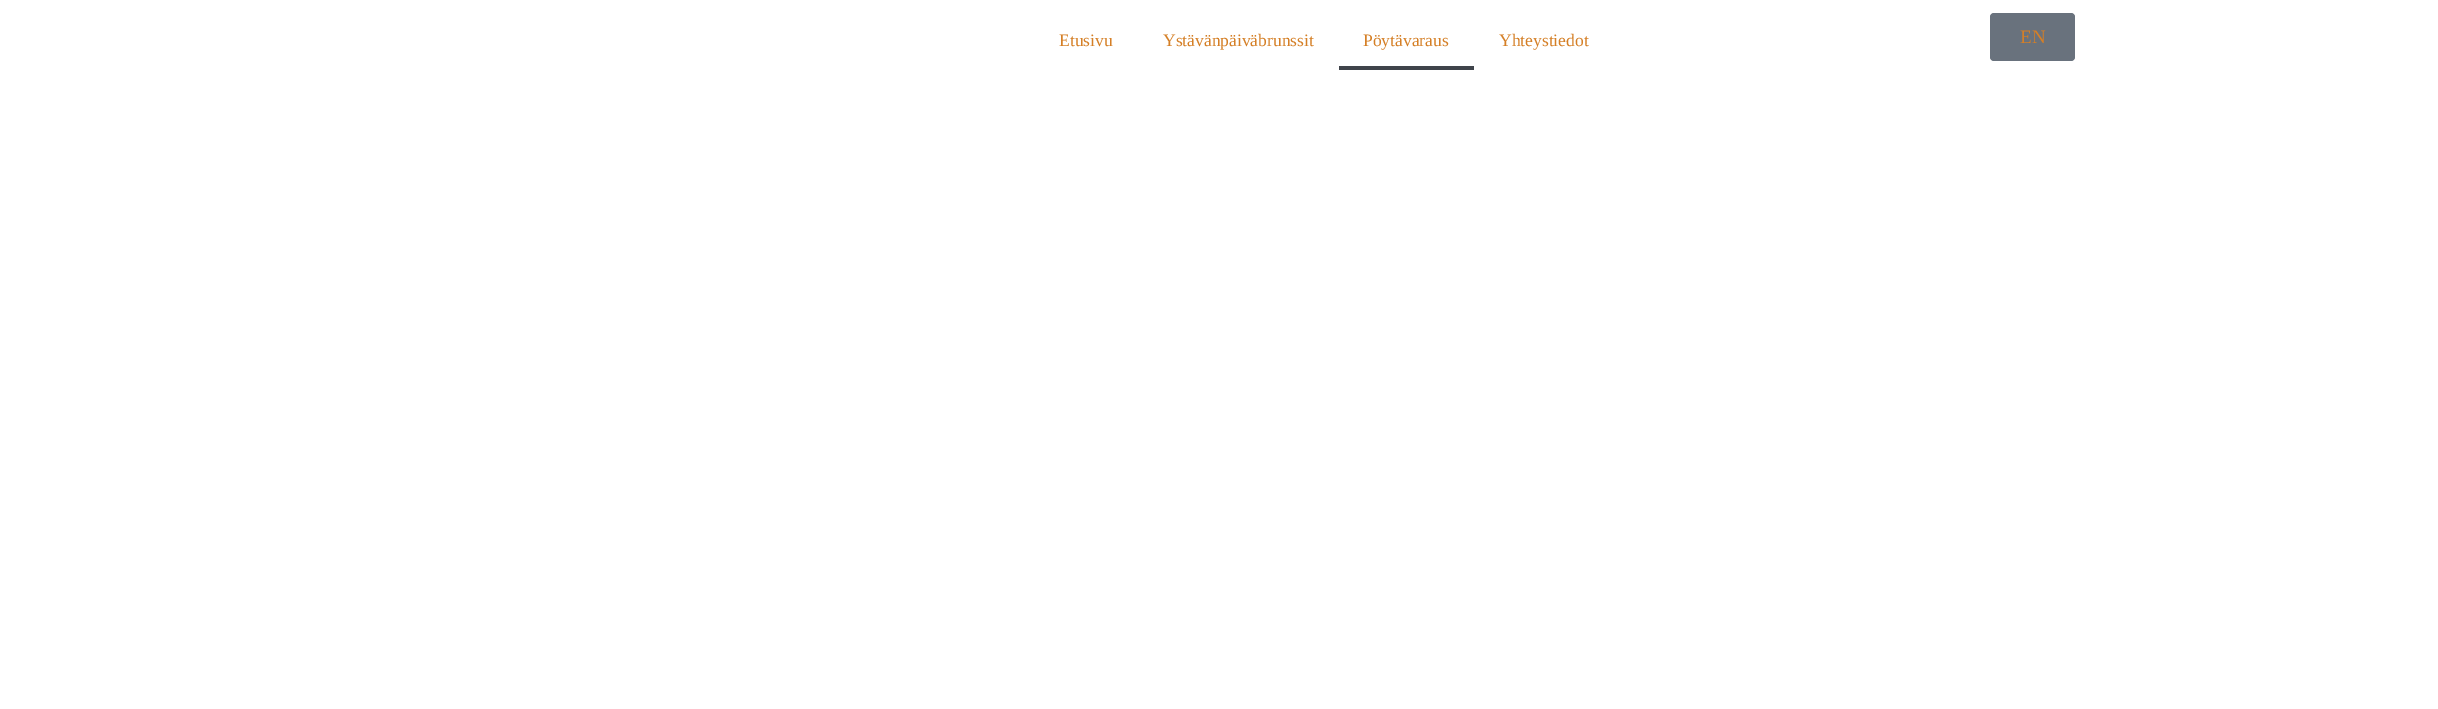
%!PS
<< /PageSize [2438 709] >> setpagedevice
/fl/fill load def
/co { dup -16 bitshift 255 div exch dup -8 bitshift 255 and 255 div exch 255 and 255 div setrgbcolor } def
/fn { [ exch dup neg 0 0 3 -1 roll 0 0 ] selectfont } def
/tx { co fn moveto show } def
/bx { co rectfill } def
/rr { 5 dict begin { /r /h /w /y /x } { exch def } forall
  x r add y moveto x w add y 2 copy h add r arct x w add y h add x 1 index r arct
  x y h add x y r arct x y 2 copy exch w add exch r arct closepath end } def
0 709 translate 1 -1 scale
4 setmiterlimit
0 0 2438 709 16#FFFFFF bx
1339 66 135 4 16#3F444B bx
16#69727D co
1990 13 85 48 4 rr fl
(Etusivu) 1059 46 /LiberationSerif-Regular 17.5 16#D57F26 tx
(Ystävänpäiväbrunssit) 1163 46 /LiberationSerif-Regular 17.5 16#D57F26 tx
(Pöytävaraus) 1363 46 /LiberationSerif-Regular 17.5 16#D57F26 tx
(Yhteystiedot) 1499 46 /LiberationSerif-Regular 17.5 16#D57F26 tx
(EN) 2020 43 /LiberationSerif-Regular 19 16#D57F26 tx
showpage
